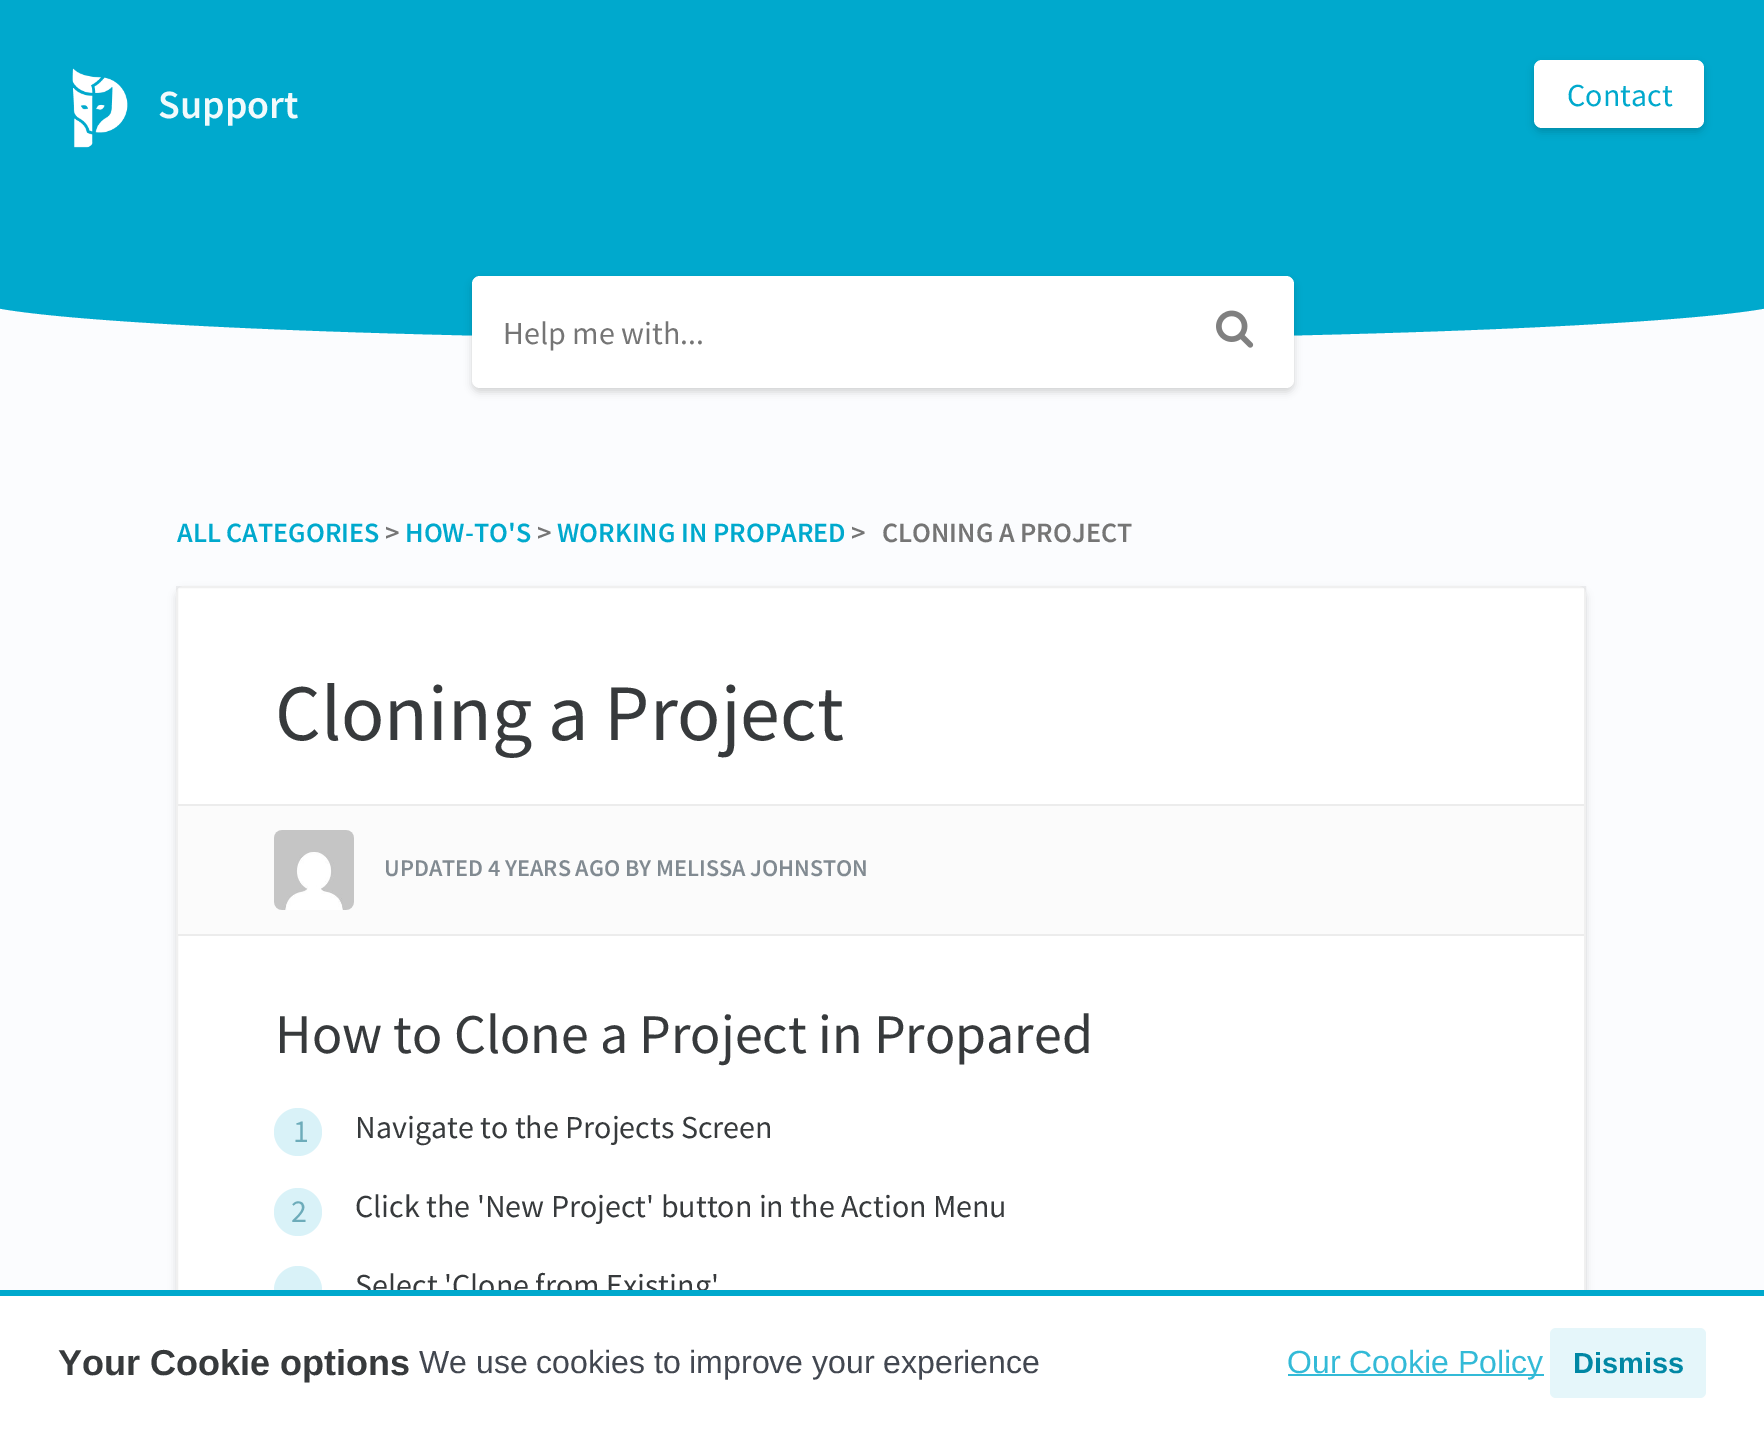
%!PS
<< /PageSize [1764 1430] /PageUsesTransparency true >> setpagedevice
/mt/moveto load def
/li/lineto load def
/ct/curveto load def
/cp/closepath load def
/fl/fill load def
/lw/setlinewidth load def
/co { dup -16 bitshift 255 div exch dup -8 bitshift 255 and 255 div exch 255 and 255 div setrgbcolor } def
/fn { [ exch dup neg 0 0 3 -1 roll 0 0 ] selectfont } def
/tx { co fn moveto show } def
/bx { co rectfill } def
/al { dup .setfillconstantalpha .setstrokeconstantalpha } def
/ci { newpath 0 360 arc closepath } def
/rr { 5 dict begin { /r /h /w /y /x } { exch def } forall
  x r add y moveto x w add y 2 copy h add r arct x w add y h add x 1 index r arct
  x y h add x y r arct x y 2 copy exch w add exch r arct closepath end } def
/sh { 12 dict begin { /a /b /q /h /w /y /x } { exch def } forall gsave /was 0 def
  9 -2 -9 { dup b mul 4 div /e exch def 1 sub .425 mul 2.718 exch exp 1 add a .99 .min exch div /now exch def
    1 1 now sub 1 was sub div sub al /was now def
    w h .min e 2 mul add 0 gt { x e sub y e sub w e 2 mul add h e 2 mul add
      q e add b .6 mul add w h .min 2 div e add .min 0 .max rr fill } if } for grestore end } def
/im { 5 dict begin { /h /w /y /x /name } { exch def } forall
  gsave x y translate w h scale
  w h 8 [w 0 0 h 0 0] name (r) file false 3 colorimage grestore end } def
0 .pushpdf14devicefilter
0 1430 translate 1 -1 scale
4 setmiterlimit
0 0 1764 1430 16#FBFCFE bx
16#00A9CD co
-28 0 mt 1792 0 li 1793 0 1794 1 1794 2 ct 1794 298 li 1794 321 1386 340 882 340 ct 378 340 -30 321 -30 298 ct -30 2 li -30 1 -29 0 -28 0 ct cp fl
(media/1.raw) 72 68 56 80 im
16#000000 co
1534 64 170 68 8 4 .16 sh
16#FFFFFF co
1534 60 170 68 8 rr fl
16#000000 co
472 280 822 112 8 4 .16 sh
16#FFFFFF co
472 276 822 112 8 rr fl
(media/2.raw) 1216 310 38 38 im
16#000000 co
176 590 1410 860 8 4 .12 sh
16#FFFFFF co
176 586 1410 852 8 rr fl
0.06 al
16#000000 co
2 lw
177 587 1408 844 rectstroke
1 al
178 806 1406 128 16#FBFBFB bx
178 804 1406 2 16#ECECEC bx
178 934 1406 2 16#ECECEC bx
(media/3.raw) 274 830 80 80 im
16#D9F2F8 co
298 1132 24 ci fl
298 1212 24 ci fl
298 1290 24 ci fl
(Support) 158 118 /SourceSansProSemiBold-SemiBold 40 16#F2FAFC tx
(Contact) 1567 106 /SourceSansPro-Regular 32 16#00A9CD tx
(Help me with...) 503 344 /SourceSansPro-Regular 32 16#757575 tx
(ALL CATEGORIES) 177 542 /SourceSansProSemiBold-SemiBold 28 16#00A9CD tx
(>) 385 542 /SourceSansProSemiBold-SemiBold 28 16#757575 tx
(HOW-TO'S) 405 542 /SourceSansProSemiBold-SemiBold 28 16#00A9CD tx
(>) 537 542 /SourceSansProSemiBold-SemiBold 28 16#757575 tx
(WORKING IN PROPARED) 557 542 /SourceSansProSemiBold-SemiBold 28 16#00A9CD tx
(>) 851 542 /SourceSansProSemiBold-SemiBold 28 16#757575 tx
(CLONING A PROJECT) 882 542 /SourceSansProSemiBold-SemiBold 28 16#757575 tx
(Cloning a Project) 275 740 /SourceSansPro-Regular 80 16#373A3C tx
(UPDATED 4 YEARS AGO BY MELISSA JOHNSTON) 384 876 /SourceSansProSemiBold-SemiBold 24 16#818A91 tx
(How to Clone a Project in Propared) 275 1053 /SourceSansPro-Regular 56 16#373A3C tx
(1) 293 1142 /SourceSansPro-Regular 32 16#6DACBA tx
(Navigate to the Projects Screen) 355 1138 /SourceSansPro-Regular 32 16#373A3C tx
(2) 291 1222 /SourceSansPro-Regular 32 16#6DACBA tx
(Click the 'New Project' button in the Action Menu) 355 1217 /SourceSansPro-Regular 32 16#373A3C tx
(Select 'Clone from Existing') 355 1296 /SourceSansPro-Regular 32 16#373A3C tx
0 1296 1764 134 16#FFFFFF bx
0 1290 1764 6 16#00A9CD bx
(Your Cookie options) 58 1375 /LiberationSans-Bold 36 16#373A3C tx
(We use cookies to improve your experience) 419 1373 /LiberationSans-Regular 32 16#424750 tx
1288 1374 256 2 16#33BAD7 bx
(Our Cookie Policy) 1287 1373 /LiberationSans-Regular 32 16#33BAD7 tx
16#E5F6FA co
1550 1328 156 70 6 rr fl
(Dismiss) 1573 1373 /LiberationSans-Bold 29 16#0087A4 tx
.poppdf14devicefilter showpage
